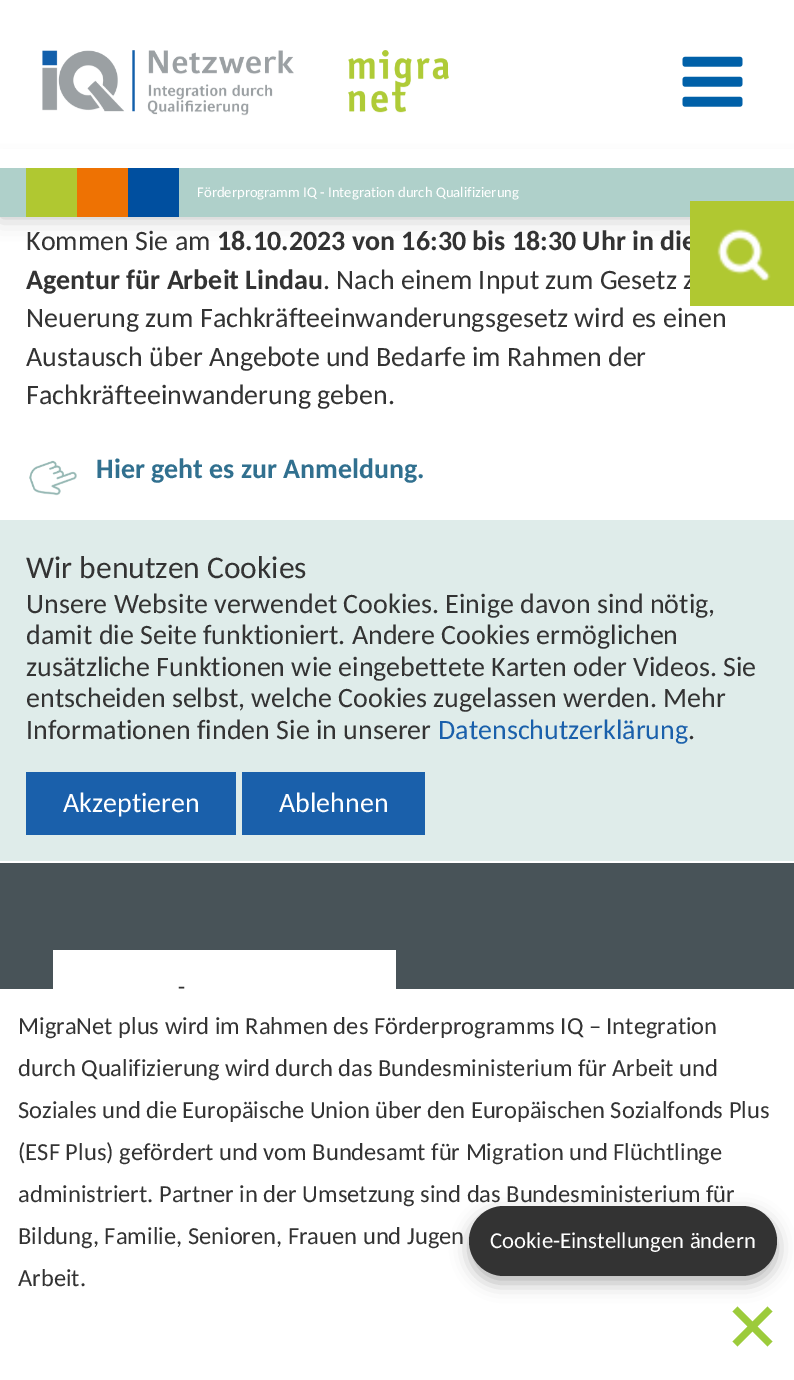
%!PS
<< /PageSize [794 1380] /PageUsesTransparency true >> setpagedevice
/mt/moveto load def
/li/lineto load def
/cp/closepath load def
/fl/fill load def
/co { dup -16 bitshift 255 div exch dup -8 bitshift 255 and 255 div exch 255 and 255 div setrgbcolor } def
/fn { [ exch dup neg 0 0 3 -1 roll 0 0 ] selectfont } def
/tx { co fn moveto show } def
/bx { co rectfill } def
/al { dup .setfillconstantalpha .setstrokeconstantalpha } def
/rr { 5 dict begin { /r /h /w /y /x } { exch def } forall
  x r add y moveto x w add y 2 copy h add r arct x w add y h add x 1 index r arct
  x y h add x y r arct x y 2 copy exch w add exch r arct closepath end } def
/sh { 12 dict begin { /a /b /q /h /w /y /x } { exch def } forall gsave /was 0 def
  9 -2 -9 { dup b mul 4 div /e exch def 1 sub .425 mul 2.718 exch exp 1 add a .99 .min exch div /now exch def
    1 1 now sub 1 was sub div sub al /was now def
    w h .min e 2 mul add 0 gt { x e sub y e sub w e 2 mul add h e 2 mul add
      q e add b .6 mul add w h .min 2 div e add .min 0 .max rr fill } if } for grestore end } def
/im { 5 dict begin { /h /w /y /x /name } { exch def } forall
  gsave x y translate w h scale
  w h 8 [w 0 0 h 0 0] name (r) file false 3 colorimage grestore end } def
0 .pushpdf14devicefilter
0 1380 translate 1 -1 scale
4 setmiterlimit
0 0 794 1380 16#FFFFFF bx
16#000000 co
0 168 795 49 0 11 .25 sh
0 149 794 19 16#FFFFFF bx
(media/1.raw) 42 50 407 66 im
(media/2.raw) 682 56 61 51 im
0 168 794 49 16#AFD0CA bx
128 168 51 49 16#004F9F bx
77 168 51 49 16#EE7203 bx
26 168 51 49 16#B0C831 bx
(media/3.raw) 29 460 48 36 im
0 863 794 126 16#485358 bx
53 950 343 39 16#FFFFFF bx
16#9CCB3B co
737.5 1306.5 mt 772.5 1341.5 li 767.5 1346.5 li 732.5 1311.5 li cp fl
732.5 1341.5 mt 767.5 1306.5 li 772.5 1311.5 li 737.5 1346.5 li cp fl
16#000000 co
469 1213 308 70 35 9 .3 sh
16#333333 co
469 1206 308 70 35 rr fl
0 520 794 341 16#DFECEA bx
26 772 210 63 16#1A60AB bx
242 772 183 63 16#1A60AB bx
(Förderprogramm IQ - Integration durch Qualifizierung) 197 197 /Carlito-Regular 14.7 16#FFFFFF tx
(Kommen Sie am) 26 250 /Carlito-Regular 28 16#333333 tx
(18.10.2023 von 16:30 bis 18:30 Uhr in die) 217 250 /Carlito-Bold 28 16#333333 tx
(Agentur für Arbeit Lindau) 26 289 /Carlito-Bold 28 16#333333 tx
(. Nach einem Input zum Gesetz z) 323 289 /Carlito-Regular 28 16#333333 tx
(Neuerung zum Fachkräfteeinwanderungsgesetz wird es einen) 26 327 /Carlito-Regular 28 16#333333 tx
(Austausch über Angebote und Bedarfe im Rahmen der) 26 366 /Carlito-Regular 28 16#333333 tx
(Fachkräfteeinwanderung geben.) 26 404 /Carlito-Regular 28 16#333333 tx
(Hier geht es zur Anmeldung.) 96 478 /Carlito-Bold 28 16#31708F tx
(-) 178 994 /Carlito-Regular 22.75 16#333333 tx
(Cookie-Einstellungen ändern) 490 1248 /Carlito-Regular 22.75 16#FFFFFF tx
690 201 104 105 16#B0C831 bx
(media/4.raw) 717 228 54 53 im
(Wir benutzen Cookies) 26 578 /Carlito-Regular 31.5 16#333333 tx
(Unsere Website verwendet Cookies. Einige davon sind nötig,) 26 613 /Carlito-Regular 28 16#333333 tx
(damit die Seite funktioniert. Andere Cookies ermöglichen) 26 644 /Carlito-Regular 28 16#333333 tx
(zusätzliche Funktionen wie eingebettete Karten oder Videos. Sie) 26 676 /Carlito-Regular 28 16#333333 tx
(entscheiden selbst, welche Cookies zugelassen werden. Mehr) 26 707 /Carlito-Regular 28 16#333333 tx
(Informationen finden Sie in unserer) 26 739 /Carlito-Regular 28 16#333333 tx
(Datenschutzerklärung) 438 739 /Carlito-Regular 28 16#1A60AB tx
(.) 688 739 /Carlito-Regular 28 16#333333 tx
(Akzeptieren) 63 812 /Carlito-Regular 28 16#FFFFFF tx
(Ablehnen) 279 812 /Carlito-Regular 28 16#FFFFFF tx
(MigraNet plus wird im Rahmen des Förderprogramms IQ – Integration) 18 1034 /Carlito-Regular 24.5 16#333333 tx
(durch Qualifizierung wird durch das Bundesministerium für Arbeit und) 18 1076 /Carlito-Regular 24.5 16#333333 tx
(Soziales und die Europäische Union über den Europäischen Sozialfonds Plus) 18 1118 /Carlito-Regular 24.5 16#333333 tx
(\(ESF Plus\) gefördert und vom Bundesamt für Migration und Flüchtlinge) 18 1160 /Carlito-Regular 24.5 16#333333 tx
(administriert. Partner in der Umsetzung sind das Bundesministerium für) 18 1202 /Carlito-Regular 24.5 16#333333 tx
(Bildung, Familie, Senioren, Frauen und Jugen) 18 1244 /Carlito-Regular 24.5 16#333333 tx
(Arbeit.) 18 1286 /Carlito-Regular 24.5 16#333333 tx
.poppdf14devicefilter showpage
